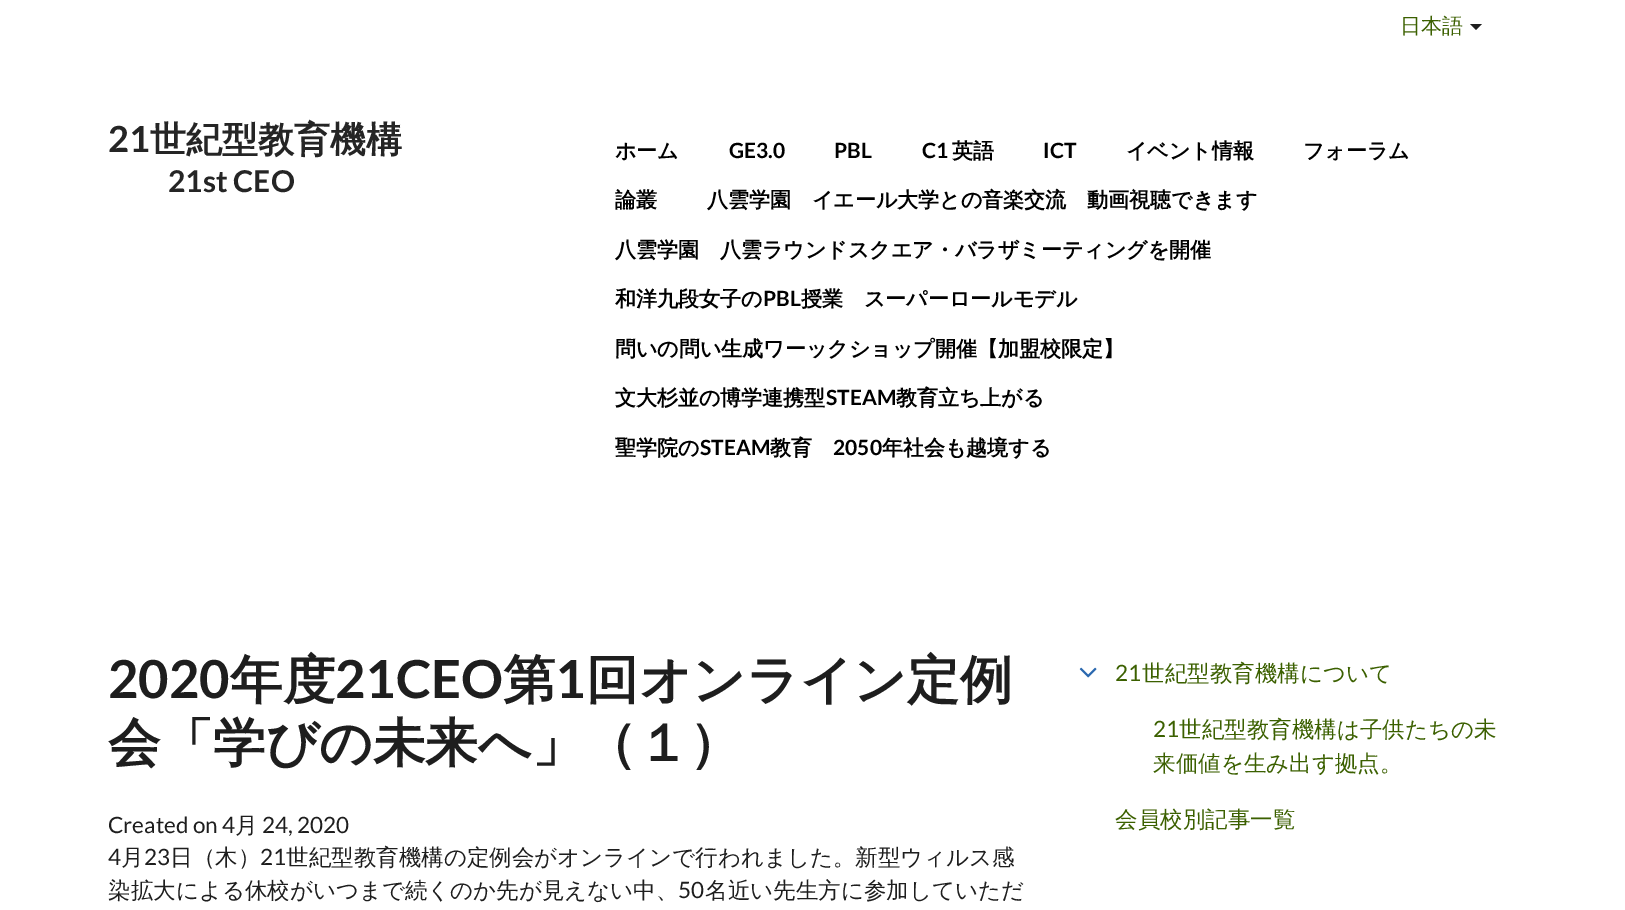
%!PS
<< /PageSize [1625 910] >> setpagedevice
/mt/moveto load def
/li/lineto load def
/cp/closepath load def
/fl/fill load def
/co { dup -16 bitshift 255 div exch dup -8 bitshift 255 and 255 div exch 255 and 255 div setrgbcolor } def
/fn { [ exch dup neg 0 0 3 -1 roll 0 0 ] selectfont } def
/tx { co fn moveto show } def
/bx { co rectfill } def
/im { 5 dict begin { /h /w /y /x /name } { exch def } forall
  gsave x y translate w h scale
  w h 8 [w 0 0 h 0 0] name (r) file false 3 colorimage grestore end } def
0 910 translate 1 -1 scale
4 setmiterlimit
0 0 1625 910 16#FFFFFF bx
16#1E1E1E co
1470 24 mt 1482 24 li 1476 30 li cp fl
(media/1.raw) 1079 667 18 11 im
(日本語) 1400 33 /WenQuanYiZenHei-Medium 21 16#3B6000 tx
(21) 108 152 /Lato-Bold 36 16#252525 tx
(世紀型教育機構) 150 152 /WenQuanYiZenHei-Bold 36 16#252525 tx
(21st CEO) 168 192 /Lato-Bold 30 16#252525 tx
(ホーム) 615 158 /WenQuanYiZenHei-Bold 21 16#000000 tx
(GE3.0) 729 158 /Lato-Bold 21 16#000000 tx
(PBL) 834 158 /Lato-Bold 21 16#000000 tx
(C1) 922 158 /Lato-Bold 21 16#000000 tx
(英語) 952 158 /WenQuanYiZenHei-Bold 21 16#000000 tx
(ICT) 1043 158 /Lato-Bold 21 16#000000 tx
(イベント情報) 1126 158 /WenQuanYiZenHei-Bold 21 16#000000 tx
(フォーラム) 1303 158 /WenQuanYiZenHei-Bold 21 16#000000 tx
(論叢) 615 207 /WenQuanYiZenHei-Bold 21 16#000000 tx
(八雲学園　イエール大学との音楽交流　動画視聴できます) 707 207 /WenQuanYiZenHei-Bold 21 16#000000 tx
(八雲学園　八雲ラウンドスクエア・バラザミーティングを開催) 615 257 /WenQuanYiZenHei-Bold 21 16#000000 tx
(和洋九段女子の) 615 306 /WenQuanYiZenHei-Bold 21 16#000000 tx
(PBL) 763 306 /Lato-Bold 21 16#000000 tx
(授業　スーパーロールモデル) 801 306 /WenQuanYiZenHei-Bold 21 16#000000 tx
(問いの問い生成ワーックショップ開催【加盟校限定】) 615 356 /WenQuanYiZenHei-Bold 21 16#000000 tx
(文大杉並の博学連携型) 615 405 /WenQuanYiZenHei-Bold 21 16#000000 tx
(STEAM) 826 405 /Lato-Bold 21 16#000000 tx
(教育立ち上がる) 896 405 /WenQuanYiZenHei-Bold 21 16#000000 tx
(聖学院の) 615 455 /WenQuanYiZenHei-Bold 21 16#000000 tx
(STEAM) 700 455 /Lato-Bold 21 16#000000 tx
(教育) 770 455 /WenQuanYiZenHei-Bold 21 16#000000 tx
(2050) 833 455 /Lato-Bold 21 16#000000 tx
(年社会も越境する) 882 455 /WenQuanYiZenHei-Bold 21 16#000000 tx
(2020) 108 698 /Lato-Bold 52.5 16#1E1E1E tx
(年度) 230 698 /WenQuanYiZenHei-Bold 52.5 16#1E1E1E tx
(21CEO) 335 698 /Lato-Bold 52.5 16#1E1E1E tx
(第) 503 698 /WenQuanYiZenHei-Bold 52.5 16#1E1E1E tx
(1) 555 698 /Lato-Bold 52.5 16#1E1E1E tx
(回オンライン定例) 586 698 /WenQuanYiZenHei-Bold 52.5 16#1E1E1E tx
(会「学びの未来へ」（１）) 108 761 /WenQuanYiZenHei-Bold 52.5 16#1E1E1E tx
(Created on 4) 108 833 /Lato-Regular 22.5 16#1E1E1E tx
(月) 235 833 /WenQuanYiZenHei-Medium 22.5 16#1E1E1E tx
(24, 2020) 262 833 /Lato-Regular 22.5 16#1E1E1E tx
(4) 108 865 /Lato-Regular 22.5 16#1E1E1E tx
(月) 121 865 /WenQuanYiZenHei-Medium 22.5 16#1E1E1E tx
(23) 144 865 /Lato-Regular 22.5 16#1E1E1E tx
(日（木）) 170 865 /WenQuanYiZenHei-Medium 22.5 16#1E1E1E tx
(21) 260 865 /Lato-Regular 22.5 16#1E1E1E tx
(世紀型教育機構の定例会がオンラインで行われました。新型ウィルス感) 286 865 /WenQuanYiZenHei-Medium 22.5 16#1E1E1E tx
(染拡大による休校がいつまで続くのか先が見えない中、) 108 898 /WenQuanYiZenHei-Medium 22.5 16#1E1E1E tx
(50) 678 898 /Lato-Regular 22.5 16#1E1E1E tx
(名近い先生方に参加していただ) 705 898 /WenQuanYiZenHei-Medium 22.5 16#1E1E1E tx
(21) 1115 681 /Lato-Regular 22.5 16#3B6000 tx
(世紀型教育機構について) 1142 681 /WenQuanYiZenHei-Medium 22.5 16#3B6000 tx
(21) 1153 737 /Lato-Regular 22.5 16#3B6000 tx
(世紀型教育機構は子供たちの未) 1179 737 /WenQuanYiZenHei-Medium 22.5 16#3B6000 tx
(来価値を生み出す拠点。) 1153 771 /WenQuanYiZenHei-Medium 22.5 16#3B6000 tx
(会員校別記事一覧) 1115 827 /WenQuanYiZenHei-Medium 22.5 16#3B6000 tx
showpage
